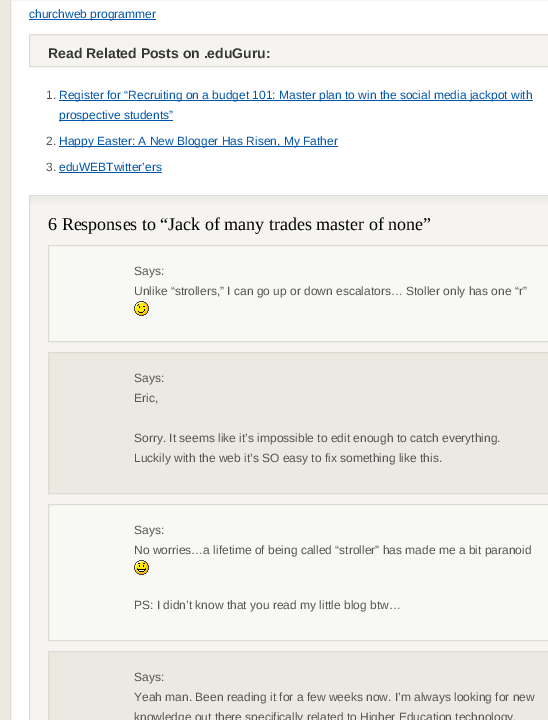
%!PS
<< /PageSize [548 720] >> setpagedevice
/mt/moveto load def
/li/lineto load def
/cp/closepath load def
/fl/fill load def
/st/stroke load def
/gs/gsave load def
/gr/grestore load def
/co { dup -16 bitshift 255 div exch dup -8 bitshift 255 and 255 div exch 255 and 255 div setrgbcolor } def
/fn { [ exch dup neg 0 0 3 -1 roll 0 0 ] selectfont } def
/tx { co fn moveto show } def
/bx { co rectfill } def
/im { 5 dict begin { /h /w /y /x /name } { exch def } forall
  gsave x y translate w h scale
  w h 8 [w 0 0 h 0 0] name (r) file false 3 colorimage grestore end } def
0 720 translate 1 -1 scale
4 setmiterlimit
0 0 548 720 16#EBE9E1 bx
16#FFFFFF co
10.5 -.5 mt 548.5 -.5 li 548.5 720.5 li 10.5 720.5 li cp gs fl gr
16#DEDBD1 co
st
29 19 127 1 16#0055AC bx
16#F5F4F0 co
29.5 34.5 mt 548.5 34.5 li 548.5 66.5 li 29.5 66.5 li cp gs fl gr
16#DEDBD1 co
st
59 100 474 1 16#0055AC bx
59 120 114 1 16#0055AC bx
59 146 279 1 16#0055AC bx
59 172 103 1 16#0055AC bx
30 196 518 524 16#F5F4F0 bx
(media/1.raw) 30 197 518 7 im
16#DEDBD1 co
29.5 195.5 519 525 rectstroke
16#F8F8F4 co
48.5 245.5 mt 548.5 245.5 li 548.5 341.5 li 48.5 341.5 li cp gs fl gr
16#DEDBD1 co
st
(media/2.raw) 134 301 15 15 im
16#EBE9E1 co
48.5 352.5 mt 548.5 352.5 li 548.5 493.5 li 48.5 493.5 li cp gs fl gr
16#DEDBD1 co
st
16#F8F8F4 co
48.5 504.5 mt 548.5 504.5 li 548.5 640.5 li 48.5 640.5 li cp gs fl gr
16#DEDBD1 co
st
(media/3.raw) 134 560 15 15 im
16#EBE9E1 co
48.5 651.5 mt 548.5 651.5 li 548.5 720.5 li 48.5 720.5 li cp gs fl gr
16#DEDBD1 co
st
(churchweb programmer) 29 18 /LiberationSans-Regular 12 16#0055AC tx
(Read Related Posts on .eduGuru:) 48 58 /LiberationSans-Bold 14 16#363636 tx
(1.) 46 99 /LiberationSans-Regular 12 16#555555 tx
(Register for “Recruiting on a budget 101: Master plan to win the social media jackpot with) 59 99 /LiberationSans-Regular 12 16#0055AC tx
(prospective students”) 59 119 /LiberationSans-Regular 12 16#0055AC tx
(2.) 46 145 /LiberationSans-Regular 12 16#555555 tx
(Happy Easter: A New Blogger Has Risen, My Father) 59 145 /LiberationSans-Regular 12 16#0055AC tx
(3.) 46 171 /LiberationSans-Regular 12 16#555555 tx
(eduWEBTwitter’ers) 59 171 /LiberationSans-Regular 12 16#0055AC tx
(6 Responses to “Jack of many trades master of none”) 48 230 /LiberationSerif-Regular 18 16#000000 tx
(Says:) 134 275 /LiberationSans-Regular 12 16#555555 tx
(Unlike “strollers,” I can go up or down escalators… Stoller only has one “r”) 134 295 /LiberationSans-Regular 12 16#555555 tx
(Says:) 134 382 /LiberationSans-Regular 12 16#555555 tx
(Eric,) 134 402 /LiberationSans-Regular 12 16#555555 tx
(Sorry. It seems like it’s impossible to edit enough to catch everything.) 134 442 /LiberationSans-Regular 12 16#555555 tx
(Luckily with the web it’s SO easy to fix something like this.) 134 462 /LiberationSans-Regular 12 16#555555 tx
(Says:) 134 534 /LiberationSans-Regular 12 16#555555 tx
(No worries…a lifetime of being called “stroller” has made me a bit paranoid) 134 554 /LiberationSans-Regular 12 16#555555 tx
(PS: I didn’t know that you read my little blog btw…) 134 609 /LiberationSans-Regular 12 16#555555 tx
(Says:) 134 681 /LiberationSans-Regular 12 16#555555 tx
(Yeah man. Been reading it for a few weeks now. I’m always looking for new) 134 701 /LiberationSans-Regular 12 16#555555 tx
(knowledge out there specifically related to Higher Education technology.) 134 721 /LiberationSans-Regular 12 16#555555 tx
showpage
